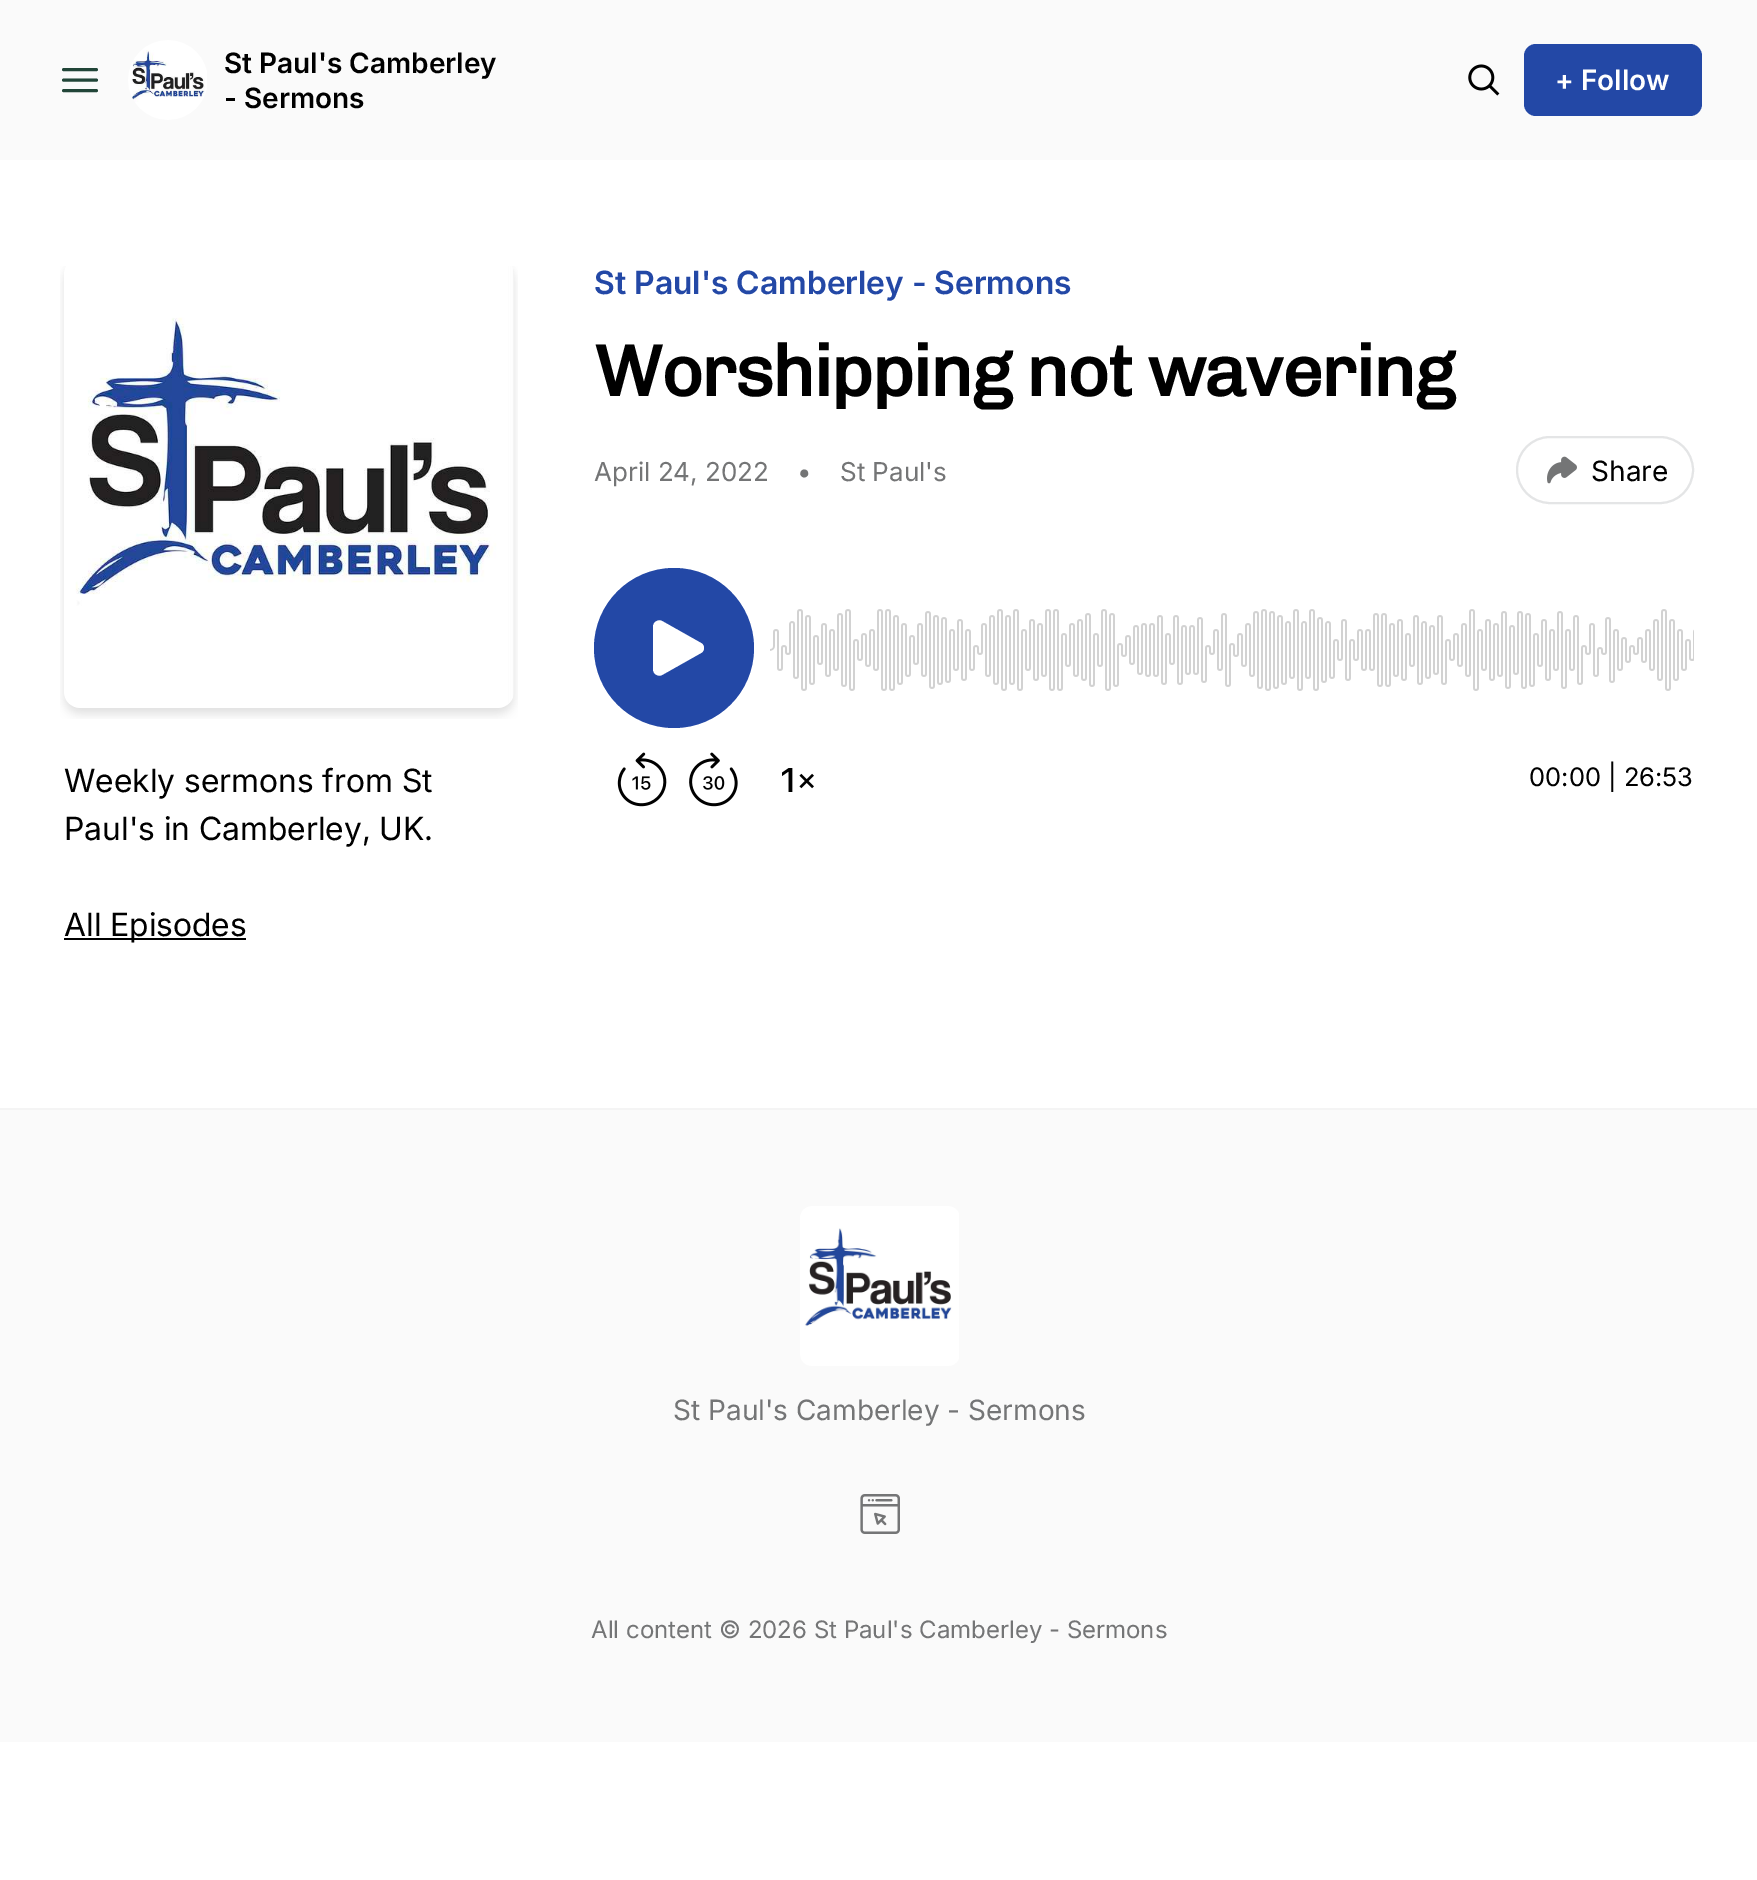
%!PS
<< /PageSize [1757 1880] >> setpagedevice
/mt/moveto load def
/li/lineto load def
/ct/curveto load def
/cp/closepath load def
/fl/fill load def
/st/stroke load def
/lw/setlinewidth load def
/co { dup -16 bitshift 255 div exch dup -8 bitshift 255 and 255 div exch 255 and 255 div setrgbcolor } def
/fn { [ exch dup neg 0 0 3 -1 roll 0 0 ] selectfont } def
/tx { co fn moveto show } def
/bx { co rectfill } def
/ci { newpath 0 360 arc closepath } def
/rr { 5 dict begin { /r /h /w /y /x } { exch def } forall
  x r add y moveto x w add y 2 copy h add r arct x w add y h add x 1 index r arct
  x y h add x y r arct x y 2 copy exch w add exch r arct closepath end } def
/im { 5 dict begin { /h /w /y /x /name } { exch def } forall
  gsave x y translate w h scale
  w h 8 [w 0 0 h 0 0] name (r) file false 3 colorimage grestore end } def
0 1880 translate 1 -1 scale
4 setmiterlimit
0 0 1757 1880 16#FFFFFF bx
0 0 1757 160 16#FAFAFA bx
16#214538 co
3 lw
1 setlinecap
1 setlinejoin
63.5 69.5 mt 96.5 69.5 li 63.5 80 mt 96.5 80 li 63.5 90.5 mt 96.5 90.5 li st
(media/1.raw) 128 40 79 80 im
(media/2.raw) 1468 64 32 32 im
16#2348A6 co
1524 44 178 72 12 rr fl
16#E4E5E6 co
2 lw
0 setlinecap
0 setlinejoin
1517 437 176 66 33 rr st
(media/3.raw) 1547 456 30 28 im
(media/4.raw) 617 752 50 55 im
(media/5.raw) 689 752 49 55 im
(media/6.raw) 782 768 32 24 im
16#2348A6 co
674 648 80 ci fl
16#FFFFFF co
653 627 mt 653 622 658 619 662 621 ct 701 643 li 705 645 705 651 701 653 ct 662 675 li 658 677 653 674 653 669 ct cp eofill
(media/7.raw) 770 609 924 82 im
(media/8.raw) 60 266 458 453 im
64 938 182 2 16#000000 bx
0 1110 1757 632 16#FAFAFA bx
0 1108 1757 2 16#F4F4F4 bx
(media/9.raw) 800 1206 159 160 im
(media/10.raw) 860 1494 40 40 im
(St Paul's Camberley) 224 73 /Inter-SemiBold 28 16#000000 tx
(- Sermons) 224 108 /Inter-SemiBold 28 16#000000 tx
(+ Follow) 1555 90 /Inter-SemiBold 28 16#FFFFFF tx
(St Paul's Camberley - Sermons) 594 294 /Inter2-SemiBold 32 16#2348A6 tx
/Chivo-Bold 72 fn
16#000000 co
594 396 mt -1.8 0 (Worshipping not wavering) ashow
(April 24, 2022) 594 481 /Inter2-Regular 26 16#747576 tx
(•) 797 481 /Inter2-Regular 26 16#747576 tx
(St Paul's) 840 481 /Inter2-Regular 26 16#747576 tx
(Share) 1591 481 /Inter2-Regular 28 16#000000 tx
(00:00 | 26:53) 1529 786 /Inter2-Regular 25.5 16#000000 tx
(Weekly sermons from St) 64 792 /Inter-Regular 32 16#000000 tx
(Paul's in Camberley, UK.) 64 840 /Inter-Regular 32 16#000000 tx
(All Episodes) 64 936 /Inter-Regular 32 16#000000 tx
(St Paul's Camberley - Sermons) 673 1420 /Inter2-Regular 28 16#747576 tx
(All content © 2026 St Paul's Camberley - Sermons) 591 1638 /Inter2-Regular 24 16#747576 tx
showpage
